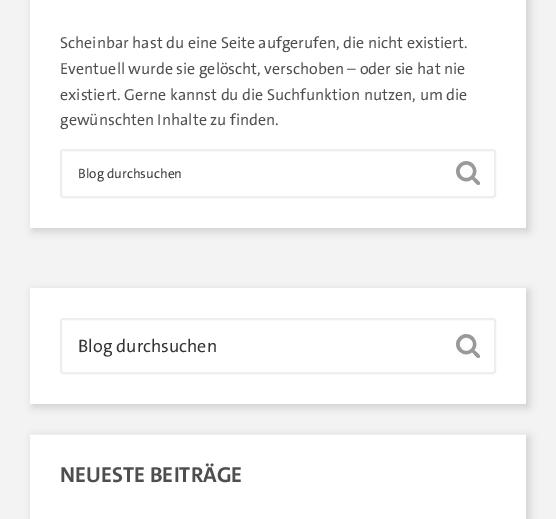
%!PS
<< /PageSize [556 519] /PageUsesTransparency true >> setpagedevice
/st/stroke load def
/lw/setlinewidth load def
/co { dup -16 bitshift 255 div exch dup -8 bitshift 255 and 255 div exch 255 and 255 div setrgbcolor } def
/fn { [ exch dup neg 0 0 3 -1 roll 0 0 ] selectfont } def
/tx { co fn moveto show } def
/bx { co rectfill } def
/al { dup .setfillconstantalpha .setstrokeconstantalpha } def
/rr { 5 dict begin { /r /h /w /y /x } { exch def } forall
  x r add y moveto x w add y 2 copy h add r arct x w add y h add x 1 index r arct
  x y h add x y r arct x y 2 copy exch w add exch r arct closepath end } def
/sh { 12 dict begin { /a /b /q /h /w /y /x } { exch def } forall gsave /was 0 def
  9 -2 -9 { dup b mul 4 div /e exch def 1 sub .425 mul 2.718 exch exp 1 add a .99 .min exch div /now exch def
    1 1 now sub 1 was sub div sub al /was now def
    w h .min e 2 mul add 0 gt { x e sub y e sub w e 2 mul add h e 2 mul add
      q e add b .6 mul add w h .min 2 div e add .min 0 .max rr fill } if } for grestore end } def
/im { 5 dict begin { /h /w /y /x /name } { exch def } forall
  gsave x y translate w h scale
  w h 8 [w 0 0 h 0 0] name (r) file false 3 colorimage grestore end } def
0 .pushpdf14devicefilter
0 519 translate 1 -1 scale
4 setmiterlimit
0 0 556 519 16#F3F3F3 bx
16#000000 co
33 -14 496 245 0 4.5 .15 sh
30 0 496 228 16#FFFFFF bx
16#EEEEEE co
2 lw
61 150 434 47 2 rr st
(media/1.raw) 456 161 24 24 im
16#000000 co
33 291 496 116 0 4.5 .15 sh
30 288 496 116 16#FFFFFF bx
16#EEEEEE co
61 319 434 54 2 rr st
(media/1.raw) 456 334 24 24 im
16#000000 co
33 437 496 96 0 4.5 .15 sh
30 435 496 84 16#FFFFFF bx
30 434 496 1 16#EEEEEE bx
(Scheinbar hast du eine Seite aufgerufen, die nicht existiert.) 60 48 /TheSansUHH-Regular 16 16#4E4E4E tx
(Eventuell wurde sie gelöscht, verschoben – oder sie hat nie) 60 74 /TheSansUHH-Regular 16 16#4E4E4E tx
(existiert. Gerne kannst du die Suchfunktion nutzen, um die) 60 100 /TheSansUHH-Regular 16 16#4E4E4E tx
(gewünschten Inhalte zu finden.) 60 125 /TheSansUHH-Regular 16 16#4E4E4E tx
(Blog durchsuchen) 78 178 /TheSansUHH-Regular 13.5 16#333333 tx
(Blog durchsuchen) 78 352 /TheSansUHH-Regular 18 16#333333 tx
(NEUESTE BEITRÄGE) 60 482 /TheSansUHH-Bold 21.75 16#4E4E4E tx
.poppdf14devicefilter showpage
